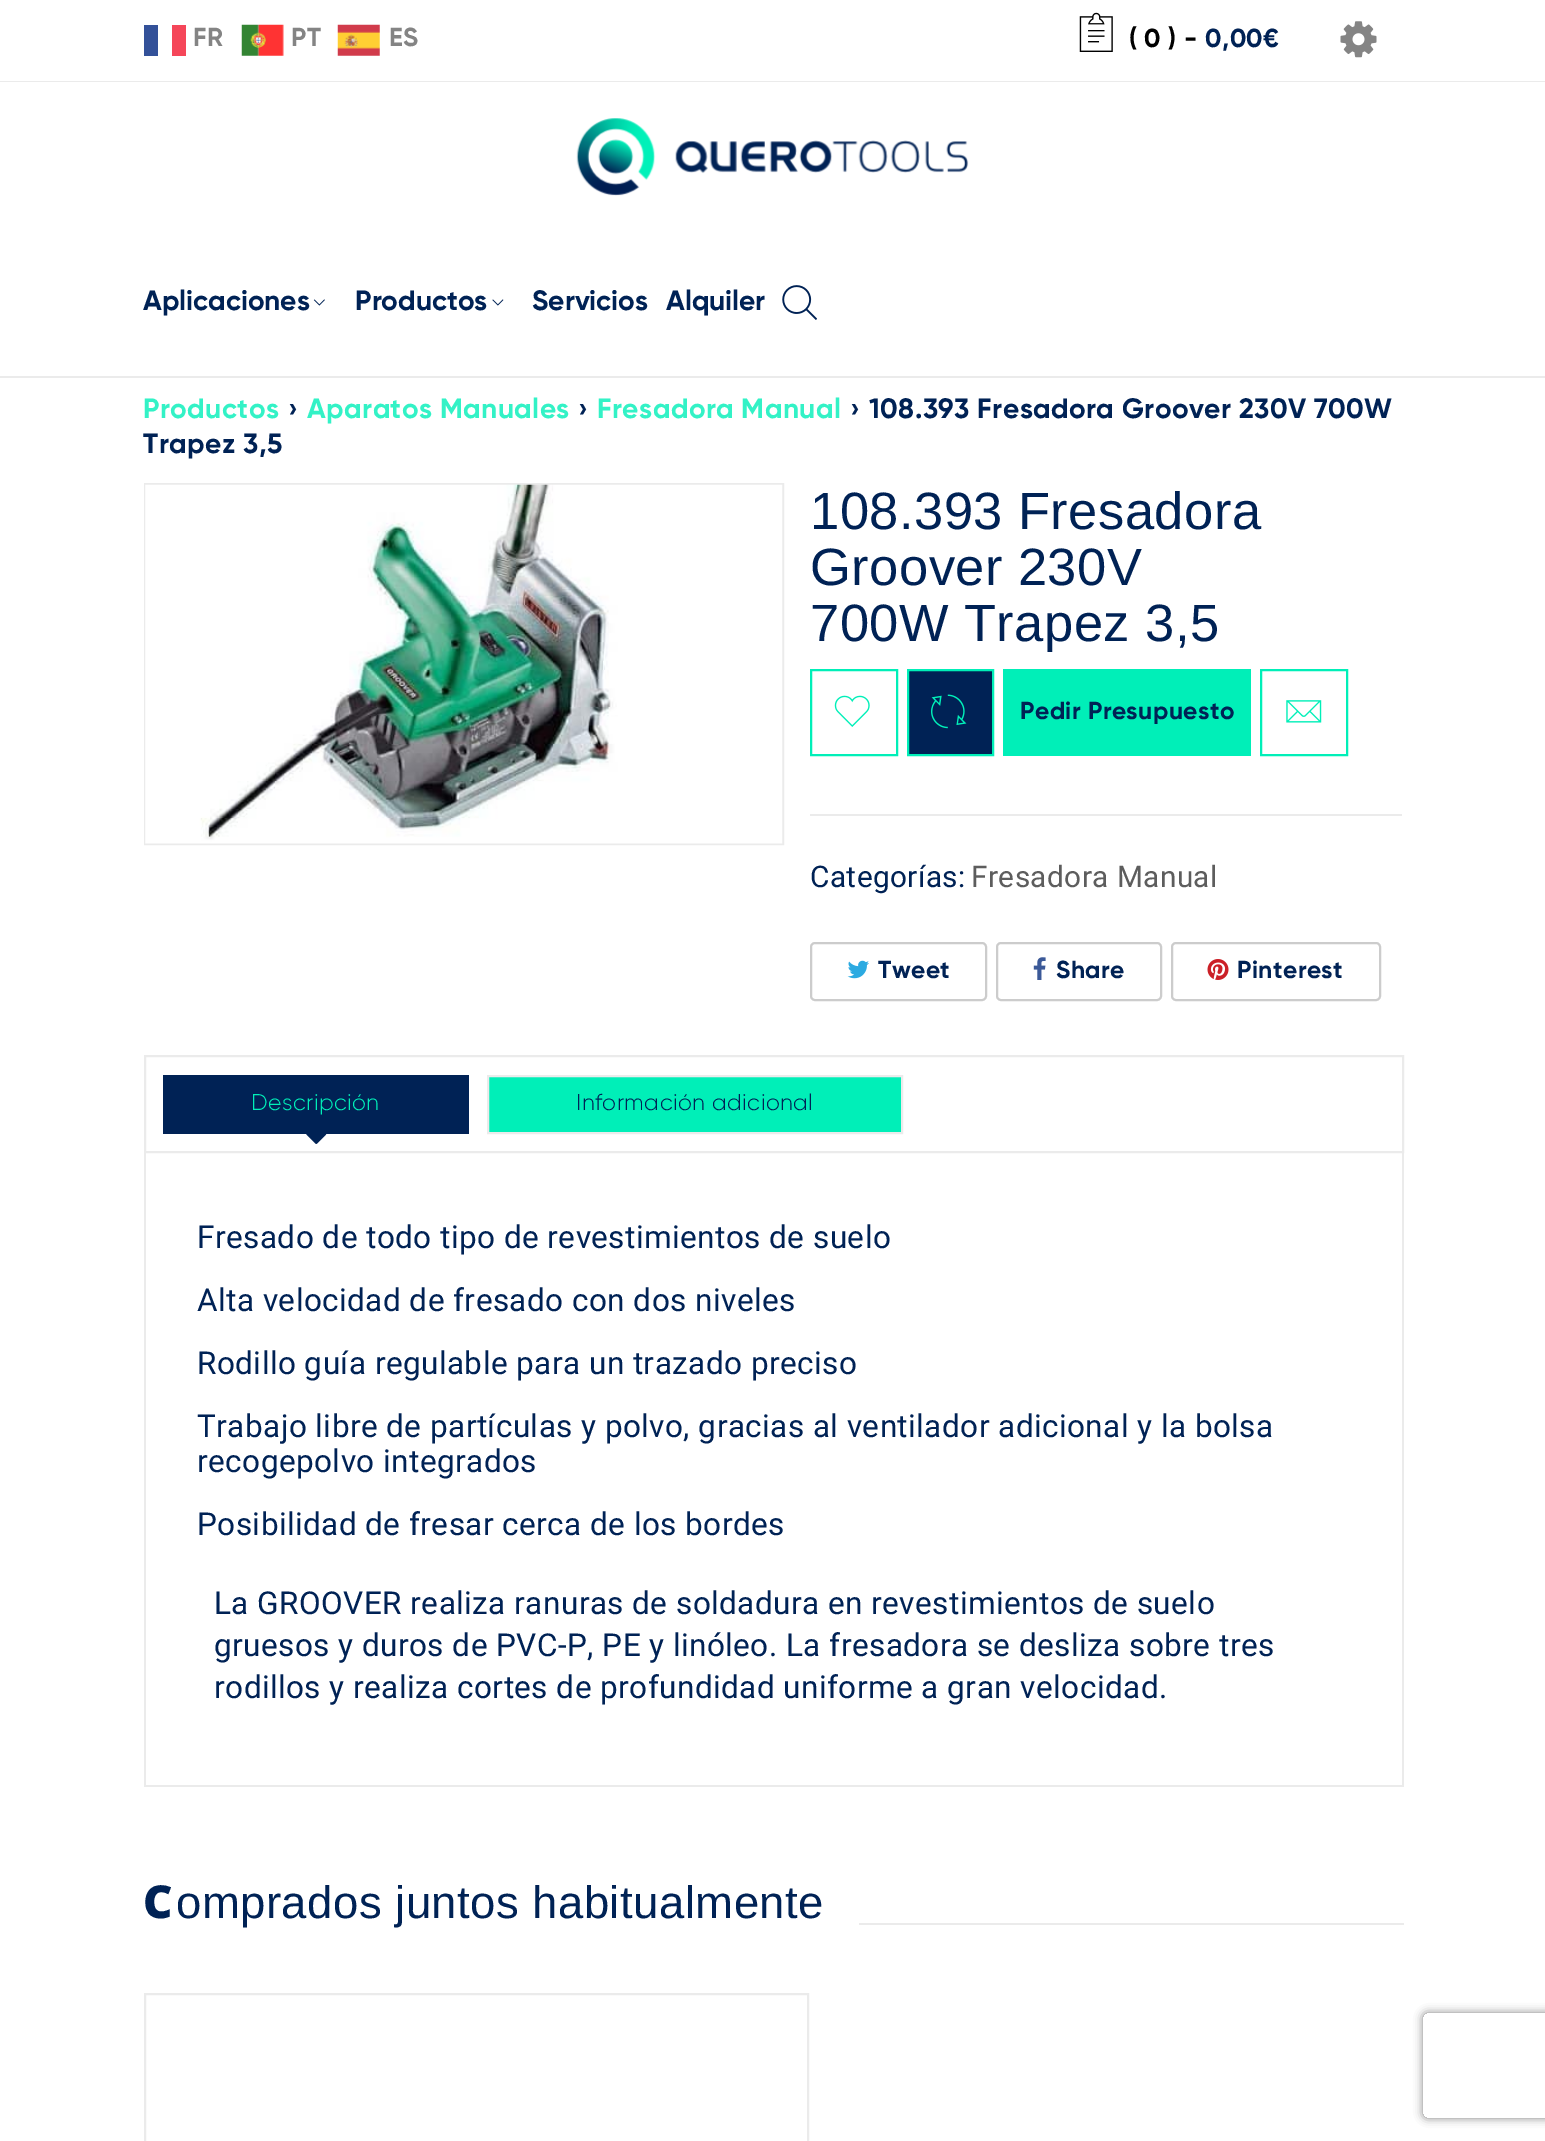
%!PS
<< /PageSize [1545 2141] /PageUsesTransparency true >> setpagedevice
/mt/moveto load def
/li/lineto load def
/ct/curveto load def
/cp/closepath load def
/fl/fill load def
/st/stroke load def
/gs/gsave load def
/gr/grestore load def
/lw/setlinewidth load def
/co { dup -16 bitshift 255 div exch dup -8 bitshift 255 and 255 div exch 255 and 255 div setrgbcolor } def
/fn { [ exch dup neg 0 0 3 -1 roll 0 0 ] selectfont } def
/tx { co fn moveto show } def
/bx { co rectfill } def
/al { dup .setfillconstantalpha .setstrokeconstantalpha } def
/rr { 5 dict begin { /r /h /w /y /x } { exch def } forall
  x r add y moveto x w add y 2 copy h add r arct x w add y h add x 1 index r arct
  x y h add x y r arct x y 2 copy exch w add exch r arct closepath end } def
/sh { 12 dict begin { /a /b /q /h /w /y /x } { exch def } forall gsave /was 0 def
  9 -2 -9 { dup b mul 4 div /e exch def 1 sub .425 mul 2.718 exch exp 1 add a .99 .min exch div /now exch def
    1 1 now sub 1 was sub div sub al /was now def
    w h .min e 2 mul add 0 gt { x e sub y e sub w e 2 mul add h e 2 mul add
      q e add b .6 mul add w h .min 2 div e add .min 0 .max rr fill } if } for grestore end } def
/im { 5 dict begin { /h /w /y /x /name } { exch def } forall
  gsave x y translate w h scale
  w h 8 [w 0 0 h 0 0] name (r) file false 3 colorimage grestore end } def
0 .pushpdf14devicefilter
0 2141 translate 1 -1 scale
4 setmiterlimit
0 0 1545 2141 16#FFFFFF bx
0 81 1545 1 16#EBEBEB bx
144 25 14 31 16#335199 bx
172 25 14 31 16#F54659 bx
(media/1.raw) 241 24 43 32 im
(media/2.raw) 337 24 43 32 im
(media/3.raw) 1079 12 34 40 im
(media/4.raw) 1340 21 37 37 im
0 376 1545 2 16#EBEBEB bx
(media/5.raw) 576 118 393 78 im
(media/6.raw) 313 299 12 7 im
(media/7.raw) 492 299 12 7 im
(media/8.raw) 782 285 35 35 im
2 lw
145 484 638 360 rectstroke
(media/9.raw) 145 484 638 360 im
16#00EFB8 co
811 670 86 85 rectstroke
(media/10.raw) 834 695 36 32 im
16#002255 co
908 670 mt 993 670 li 993 755 li 908 755 li cp gs fl gr
16#00EFB8 co
st
(media/11.raw) 931 694 36 35 im
1003 669 248 87 16#00EFB8 bx
1261 670 86 85 rectstroke
(media/12.raw) 1286 700 36 23 im
810 814 592 2 16#EBEBEB bx
16#CCCCCC co
811 943 175 57 4 rr st
(media/13.raw) 847 960 22 19 im
997 943 164 57 4 rr st
(media/14.raw) 1033 957 13 23 im
1172 943 208 57 4 rr st
(media/15.raw) 1207 959 22 21 im
16#EBEBEB co
145 1056 1258 96 rectstroke
163 1075 306 59 16#002255 bx
(media/16.raw) 306 1134 21 10 im
16#00EFB8 co
488 1076 mt 902 1076 li 902 1133 li 488 1133 li cp gs fl gr
16#EBEBEB co
st
1402 1153 2 634 16#EBEBEB bx
144 1785 1260 2 16#EBEBEB bx
144 1153 2 634 16#EBEBEB bx
859 1923 545 2 16#EBEBEB bx
145 1994 663 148 rectstroke
gs
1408 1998 mt 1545 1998 li 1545 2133 li 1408 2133 li cp 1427 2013 mt 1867 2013 li 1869 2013 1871 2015 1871 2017 ct 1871 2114 li 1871 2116 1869 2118 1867 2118 ct 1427 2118 li 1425 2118 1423 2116 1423 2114 ct 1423 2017 li 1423 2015 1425 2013 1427 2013 ct cp eoclip newpath
16#808080 co
1423 2013 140 105 4 4.5 1 sh
gr
/Gilroy-Bold 26 fn
16#848484 co
193 46 mt .45 0 (FR) ashow
291 46 mt .45 0 (PT) ashow
389 46 mt .45 0 (ES) ashow
16#000000 co
1129 47 mt .45 0 (\( 0 \) -) ashow
16#002255 co
1205 47 mt .45 0 (0,00€) ashow
(Aplicaciones) 143 310 /Gilroy-Bold 28 16#002255 tx
(Productos) 355 310 /Gilroy-Bold 28 16#002255 tx
(Servicios) 532 310 /Gilroy-Bold 28 16#002255 tx
(Alquiler) 666 310 /Gilroy-Bold 28 16#002255 tx
16#33F2C6 co
143 418 mt .45 0 (Productos) ashow
16#002255 co
288 418 mt .45 0 (›) ashow
16#33F2C6 co
307 418 mt .45 0 (Aparatos Manuales) ashow
16#002255 co
578 418 mt .45 0 (›) ashow
16#33F2C6 co
597 418 mt .45 0 (Fresadora Manual) ashow
16#002255 co
850 418 mt .45 0 (›) ashow
869 418 mt .45 0 (108.393 Fresadora Groover 230V 700W) ashow
143 453 mt .45 0 (Trapez 3,5) ashow
/LiberationSans-Regular 52.5 fn
810 529 mt .45 0 (108.393 Fresadora) ashow
810 585 mt .45 0 (Groover 230V) ashow
810 641 mt .45 0 (700W Trapez 3,5) ashow
/Gilroy-Bold 24.5 fn
1020 719 mt .45 0 (Pedir Presupuesto) ashow
/Roboto-Regular 29.75 fn
810 887 mt .45 0 (Categorías:) ashow
16#5D5D5D co
971 887 mt .45 0 (Fresadora Manual) ashow
/Gilroy-Bold 24.5 fn
16#002255 co
878 978 mt .45 0 (Tweet) ashow
1056 978 mt .45 0 (Share) ashow
1237 978 mt .45 0 (Pinterest) ashow
/Gilroy-Light 22.75 fn
16#00EFB8 co
251 1110 mt .45 0 (Descripción) ashow
16#002255 co
576 1110 mt .45 0 (Información adicional) ashow
/Roboto-Regular 31.5 fn
197 1248 mt .45 0 (Fresado de todo tipo de revestimientos de suelo) ashow
197 1311 mt .45 0 (Alta velocidad de fresado con dos niveles) ashow
197 1374 mt .45 0 (Rodillo guía regulable para un trazado preciso) ashow
197 1437 mt .45 0 (Trabajo libre de partículas y polvo, gracias al ventilador adicional y la bolsa) ashow
197 1472 mt .45 0 (recogepolvo integrados) ashow
197 1535 mt .45 0 (Posibilidad de fresar cerca de los bordes) ashow
214 1614 mt .45 0 (La GROOVER realiza ranuras de soldadura en revestimientos de suelo) ashow
214 1656 mt .45 0 (gruesos y duros de PVC-P, PE y linóleo. La fresadora se desliza sobre tres) ashow
214 1698 mt .45 0 (rodillos y realiza cortes de profundidad uniforme a gran velocidad.) ashow
/NotoSans-Black 45.5 fn
143 1918 mt .45 0 (C) ashow
/LiberationSans-Regular 45.5 fn
176 1918 mt .45 0 (omprados juntos habitualmente) ashow
.poppdf14devicefilter showpage
